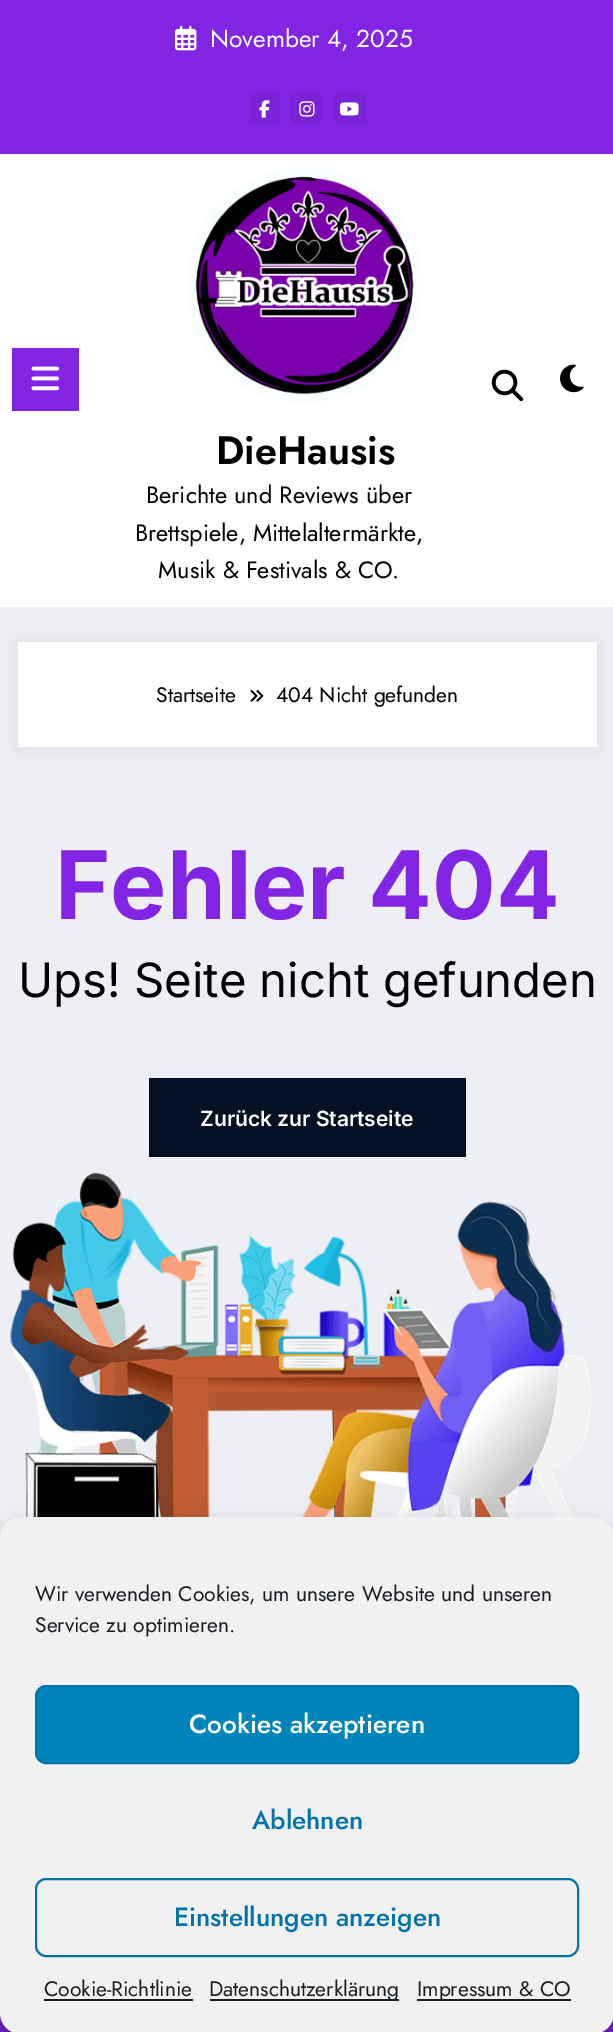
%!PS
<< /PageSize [613 2032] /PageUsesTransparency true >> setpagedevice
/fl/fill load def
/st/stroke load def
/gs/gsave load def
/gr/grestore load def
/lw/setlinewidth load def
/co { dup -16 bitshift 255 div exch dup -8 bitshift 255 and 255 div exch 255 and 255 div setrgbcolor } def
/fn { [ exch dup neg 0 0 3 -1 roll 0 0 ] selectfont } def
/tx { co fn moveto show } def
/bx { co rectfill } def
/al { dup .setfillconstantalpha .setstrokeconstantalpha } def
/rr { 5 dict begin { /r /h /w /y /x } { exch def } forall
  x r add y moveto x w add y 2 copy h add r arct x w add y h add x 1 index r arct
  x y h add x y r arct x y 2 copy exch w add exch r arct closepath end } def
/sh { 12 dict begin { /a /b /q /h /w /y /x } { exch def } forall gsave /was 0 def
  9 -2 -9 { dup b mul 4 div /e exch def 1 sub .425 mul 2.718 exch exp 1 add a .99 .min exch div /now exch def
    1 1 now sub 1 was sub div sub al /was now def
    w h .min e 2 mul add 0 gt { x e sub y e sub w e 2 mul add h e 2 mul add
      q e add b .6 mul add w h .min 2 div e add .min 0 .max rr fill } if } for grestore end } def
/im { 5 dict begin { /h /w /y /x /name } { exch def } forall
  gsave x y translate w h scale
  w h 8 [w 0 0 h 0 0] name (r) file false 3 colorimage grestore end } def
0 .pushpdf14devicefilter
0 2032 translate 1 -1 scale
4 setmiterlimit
0 0 613 2032 16#8224E3 bx
0 607 613 931 16#EEEEF5 bx
(media/1.raw) 175 25 22 26 im
249 93 31 31 16#7A22D5 bx
(media/2.raw) 259 100 11 18 im
291 93 31 31 16#7A22D5 bx
(media/3.raw) 299 101 16 16 im
334 93 32 31 16#7A22D5 bx
(media/4.raw) 340 102 19 14 im
0 154 613 453 16#FFFFFF bx
12 348 67 63 16#8224E3 bx
(media/5.raw) 31 366 29 25 im
(media/6.raw) 491 369 33 33 im
(media/7.raw) 560 364 24 29 im
(media/8.raw) 186 167 237 236 im
16#171723 co
14 639 586 112 0 7 .05 sh
18 642 579 105 16#FFFFFF bx
(media/9.raw) 250 690 14 12 im
149 1078 317 79 16#041124 bx
(media/10.raw) 10 1172 582 345 im
16#000000 co
0 1528 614 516 21 5 .23 sh
0 1535 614 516 21 17.5 .19 sh
16#F1F1F1 co
0 1517 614 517 21 rr fl
16#0085BA co
36 1686 542 77 10 rr gs fl gr
16#0073AA co
2 lw
st
36 1879 542 77 10 rr st
44 1999 149 2 16#191E23 bx
210 1999 189 2 16#191E23 bx
417 1999 154 2 16#191E23 bx
(November 4, 2025) 210 47 /Jost-Regular 24.5 16#FFFFFF tx
(DieHausis) 216 464 /Jost-SemiBold 39.5 16#000000 tx
(Berichte und Reviews über) 146 503 /Jost-Regular 23.6 16#000000 tx
(Brettspiele, Mittelaltermärkte,) 135 541 /Jost-Regular 23.6 16#000000 tx
(Musik & Festivals & CO.) 158 578 /Jost-Regular 23.6 16#000000 tx
(Startseite) 156 702 /Jost-Regular 21 16#000000 tx
(404 Nicht gefunden) 276 702 /Jost-Regular 21 16#000000 tx
(Fehler 404) 55 919 /Inter-Bold 94.5 16#8224E3 tx
(Ups! Seite nicht gefunden) 18 997 /Inter-Regular 47.25 16#000000 tx
(Zurück zur Startseite) 200 1126 /Inter-SemiBold 21 16#FFFFFF tx
(Wir verwenden Cookies, um unsere Website und unseren) 35 1601 /Jost-Regular 21 16#191E23 tx
(Service zu optimieren.) 35 1632 /Jost-Regular 21 16#191E23 tx
(Cookies akzeptieren) 189 1733 /Jost-Medium 26.25 16#FFFFFF tx
(Ablehnen) 252 1829 /Jost-Medium 26.25 16#0073AA tx
(Einstellungen anzeigen) 174 1926 /Jost-Medium 26.25 16#0073AA tx
(Cookie-Richtlinie) 44 1996 /Jost-Regular 21 16#191E23 tx
(Datenschutzerklärung) 209 1996 /Jost-Regular 21 16#191E23 tx
(Impressum & CO) 417 1996 /Jost-Regular 21 16#191E23 tx
.poppdf14devicefilter showpage
